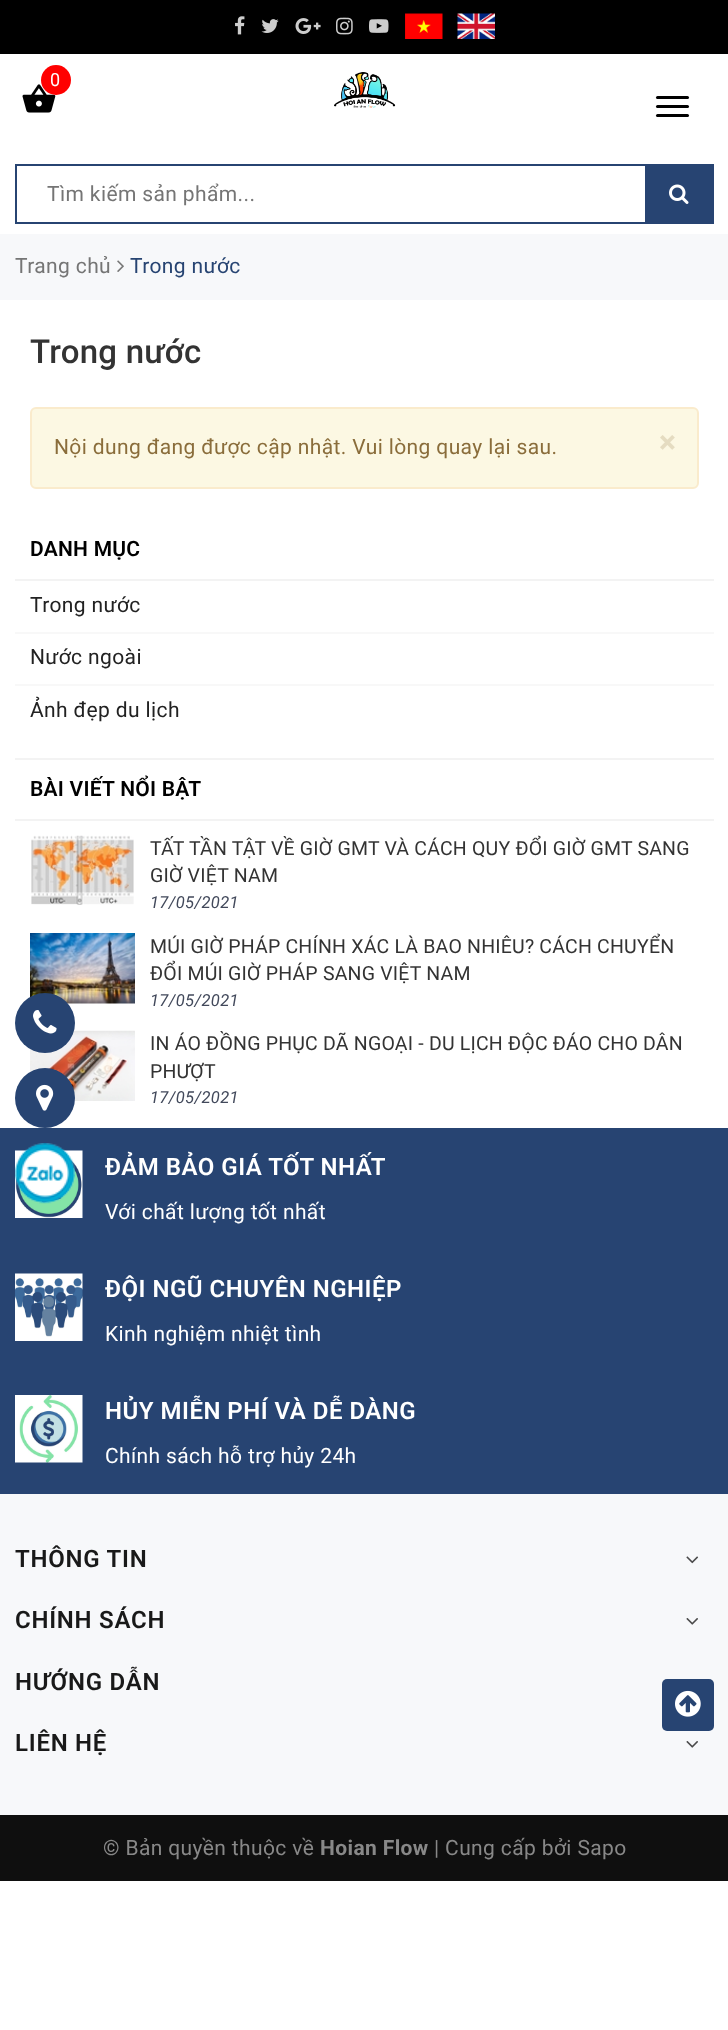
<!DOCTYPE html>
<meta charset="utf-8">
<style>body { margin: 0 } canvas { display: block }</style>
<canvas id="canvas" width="728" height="2030"></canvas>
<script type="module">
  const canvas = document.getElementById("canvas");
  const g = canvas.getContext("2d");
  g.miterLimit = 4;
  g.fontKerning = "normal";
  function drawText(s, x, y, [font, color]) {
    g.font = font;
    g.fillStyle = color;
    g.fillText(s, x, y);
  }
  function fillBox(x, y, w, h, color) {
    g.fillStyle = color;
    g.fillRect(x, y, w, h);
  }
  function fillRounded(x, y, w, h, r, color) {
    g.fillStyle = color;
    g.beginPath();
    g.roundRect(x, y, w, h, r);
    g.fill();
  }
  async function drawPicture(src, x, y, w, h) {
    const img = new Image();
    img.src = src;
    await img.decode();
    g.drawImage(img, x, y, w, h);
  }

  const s1 = ["18px Roboto", "#FFFFFF"];
  const s2 = ["21px Roboto", "#757575"];
  const s3 = ["21px Roboto", "#274472"];
  const s4 = ["500 33px Roboto", "#333333"];
  const s5 = ["21px Roboto", "#8A6D3B"];
  const s6 = ["bold 32px Roboto", "#E5DCC1"];
  const s7 = ["600 21px Roboto", "#000000"];
  const s8 = ["21px Roboto", "#222222"];
  const s9 = ["19.5px Roboto", "#333333"];
  const s10 = ["italic 16.5px Roboto", "#42495B"];
  const s11 = ["600 24px Roboto", "#FFFFFF"];
  const s12 = ["21px Roboto", "#FFFFFF"];
  const s13 = ["600 24px Roboto", "#191919"];
  const s14 = ["21px Roboto", "#888888"];
  const s15 = ["bold 21px Roboto", "#888888"];

  fillBox(0, 0, 728, 2030, "#FFFFFF");
  fillBox(0, 0, 728, 54, "#000000");
  await drawPicture("pic1.png", 235, 16, 10, 19);
  await drawPicture("pic2.png", 261, 19, 18, 14);
  await drawPicture("pic3.png", 295, 18, 26, 16);
  await drawPicture("pic4.png", 336, 17, 17, 18);
  await drawPicture("pic5.png", 369, 19, 20, 14);
  await drawPicture("pic6.png", 405, 13, 38, 26);
  await drawPicture("pic7.png", 457, 13, 38, 26);
  await drawPicture("pic8.png", 22, 84, 34, 29);
  g.fillStyle = "#FF0000";
  g.beginPath();
  g.arc(56, 80, 15, 0, Math.PI * 2);
  g.fill();
  g.letterSpacing = "0.38px";
  drawText("0", 50, 86, s1);
  await drawPicture("pic9.png", 334, 72, 62, 36);
  fillRounded(656, 96, 33, 3, 1.5, "#000000");
  fillRounded(656, 105, 33, 3, 1.5, "#000000");
  fillRounded(656, 114, 33, 3, 1.5, "#000000");
  g.strokeStyle = "#274472";
  g.lineWidth = 2;
  g.strokeRect(16, 165, 697, 58);
  drawText("Tìm kiếm sản phẩm...", 47, 201, s2);
  fillBox(645, 166, 67, 56, "#274472");
  await drawPicture("pic10.png", 669, 184, 20, 20);
  fillBox(0, 234, 728, 66, "#F7F8FA");
  drawText("Trang chủ", 15, 273, s2);
  await drawPicture("pic11.png", 117, 260, 7, 12);
  drawText("Trong nước", 130, 273, s3);
  g.letterSpacing = "0.25px";
  drawText("Trong nước", 30, 363, s4);
  g.fillStyle = "#FCF8E3";
  g.beginPath();
  g.roundRect(31, 408, 667, 80, 5);
  g.fill();
  g.strokeStyle = "#FAEBCC";
  g.stroke();
  g.letterSpacing = "0.38px";
  drawText("Nội dung đang được cập nhật. Vui lòng quay lại sau.", 54, 454, s5);
  drawText("×", 659, 453, s6);
  fillBox(15, 579, 699, 2, "#F3F3F3");
  g.letterSpacing = "0.25px";
  drawText("DANH MỤC", 30, 556, s7);
  fillBox(15, 632, 699, 2, "#F8F8F8");
  g.letterSpacing = "0.38px";
  drawText("Trong nước", 30, 612, s8);
  fillBox(15, 684, 699, 2, "#F8F8F8");
  drawText("Nước ngoài", 30, 664, s8);
  drawText("Ảnh đẹp du lịch", 30, 717, s8);
  fillBox(15, 758, 699, 2, "#F3F3F3");
  fillBox(15, 819, 699, 2, "#F3F3F3");
  g.letterSpacing = "0.25px";
  drawText("BÀI VIẾT NỔI BẬT", 30, 796, s7);
  await drawPicture("pic12.png", 31, 835, 103, 70);
  g.letterSpacing = "0.2px";
  drawText("TẤT TẦN TẬT VỀ GIỜ GMT VÀ CÁCH QUY ĐỔI GIỜ GMT SANG", 150, 855, s9);
  drawText("GIỜ VIỆT NAM", 150, 882, s9);
  g.letterSpacing = "0.38px";
  drawText("17/05/2021", 150, 908, s10);
  await drawPicture("pic13.png", 30, 933, 105, 71);
  g.letterSpacing = "0.2px";
  drawText("MÚI GIỜ PHÁP CHÍNH XÁC LÀ BAO NHIÊU? CÁCH CHUYỂN", 150, 953, s9);
  drawText("ĐỔI MÚI GIỜ PHÁP SANG VIỆT NAM", 150, 980, s9);
  g.letterSpacing = "0.38px";
  drawText("17/05/2021", 150, 1006, s10);
  await drawPicture("pic14.png", 30, 1030, 105, 71);
  g.letterSpacing = "0.2px";
  drawText("IN ÁO ĐỒNG PHỤC DÃ NGOẠI - DU LỊCH ĐỘC ĐÁO CHO DÂN", 150, 1050, s9);
  drawText("PHƯỢT", 150, 1078, s9);
  g.letterSpacing = "0.38px";
  drawText("17/05/2021", 150, 1103, s10);
  g.fillStyle = "#274472";
  g.beginPath();
  g.arc(45, 1023, 30, 0, Math.PI * 2);
  g.fill();
  await drawPicture("pic15.png", 33, 1010, 24, 24);
  g.beginPath();
  g.arc(45, 1098, 30, 0, Math.PI * 2);
  g.fill();
  await drawPicture("pic16.png", 36, 1084, 18, 27);
  fillBox(0, 1128, 728, 366, "#274472");
  await drawPicture("pic18.png", 15, 1150, 68, 68);
  await drawPicture("pic17.png", 15, 1143, 60, 61);
  g.letterSpacing = "0.5px";
  drawText("ĐẢM BẢO GIÁ TỐT NHẤT", 105, 1175, s11);
  g.letterSpacing = "0.38px";
  drawText("Với chất lượng tốt nhất", 105, 1219, s12);
  await drawPicture("pic19.png", 15, 1273, 68, 68);
  g.letterSpacing = "0.5px";
  drawText("ĐỘI NGŨ CHUYÊN NGHIỆP", 105, 1297, s11);
  g.letterSpacing = "0.38px";
  drawText("Kinh nghiệm nhiệt tình", 105, 1341, s12);
  await drawPicture("pic20.png", 15, 1395, 68, 68);
  g.letterSpacing = "0.5px";
  drawText("HỦY MIỄN PHÍ VÀ DỄ DÀNG", 105, 1419, s11);
  g.letterSpacing = "0.38px";
  drawText("Chính sách hỗ trợ hủy 24h", 105, 1463, s12);
  fillBox(0, 1494, 728, 321, "#F7F8FA");
  g.letterSpacing = "0.75px";
  drawText("THÔNG TIN", 15, 1567, s13);
  await drawPicture("pic21.png", 686, 1556, 13, 8);
  drawText("CHÍNH SÁCH", 15, 1628, s13);
  await drawPicture("pic22.png", 686, 1618, 12, 7);
  drawText("HƯỚNG DẪN", 15, 1690, s13);
  drawText("LIÊN HỆ", 15, 1751, s13);
  await drawPicture("pic22.png", 686, 1741, 12, 7);
  fillRounded(662, 1679, 52, 52, 5, "#274472");
  await drawPicture("pic23.png", 675, 1690, 26, 27);
  fillBox(0, 1815, 728, 66, "#0F0F0F");
  g.letterSpacing = "0.38px";
  drawText("© Bản quyền thuộc về", 103, 1855, s14);
  drawText("Hoian Flow", 320, 1855, s15);
  drawText("| Cung cấp bởi Sapo", 434, 1855, s14);
</script>
